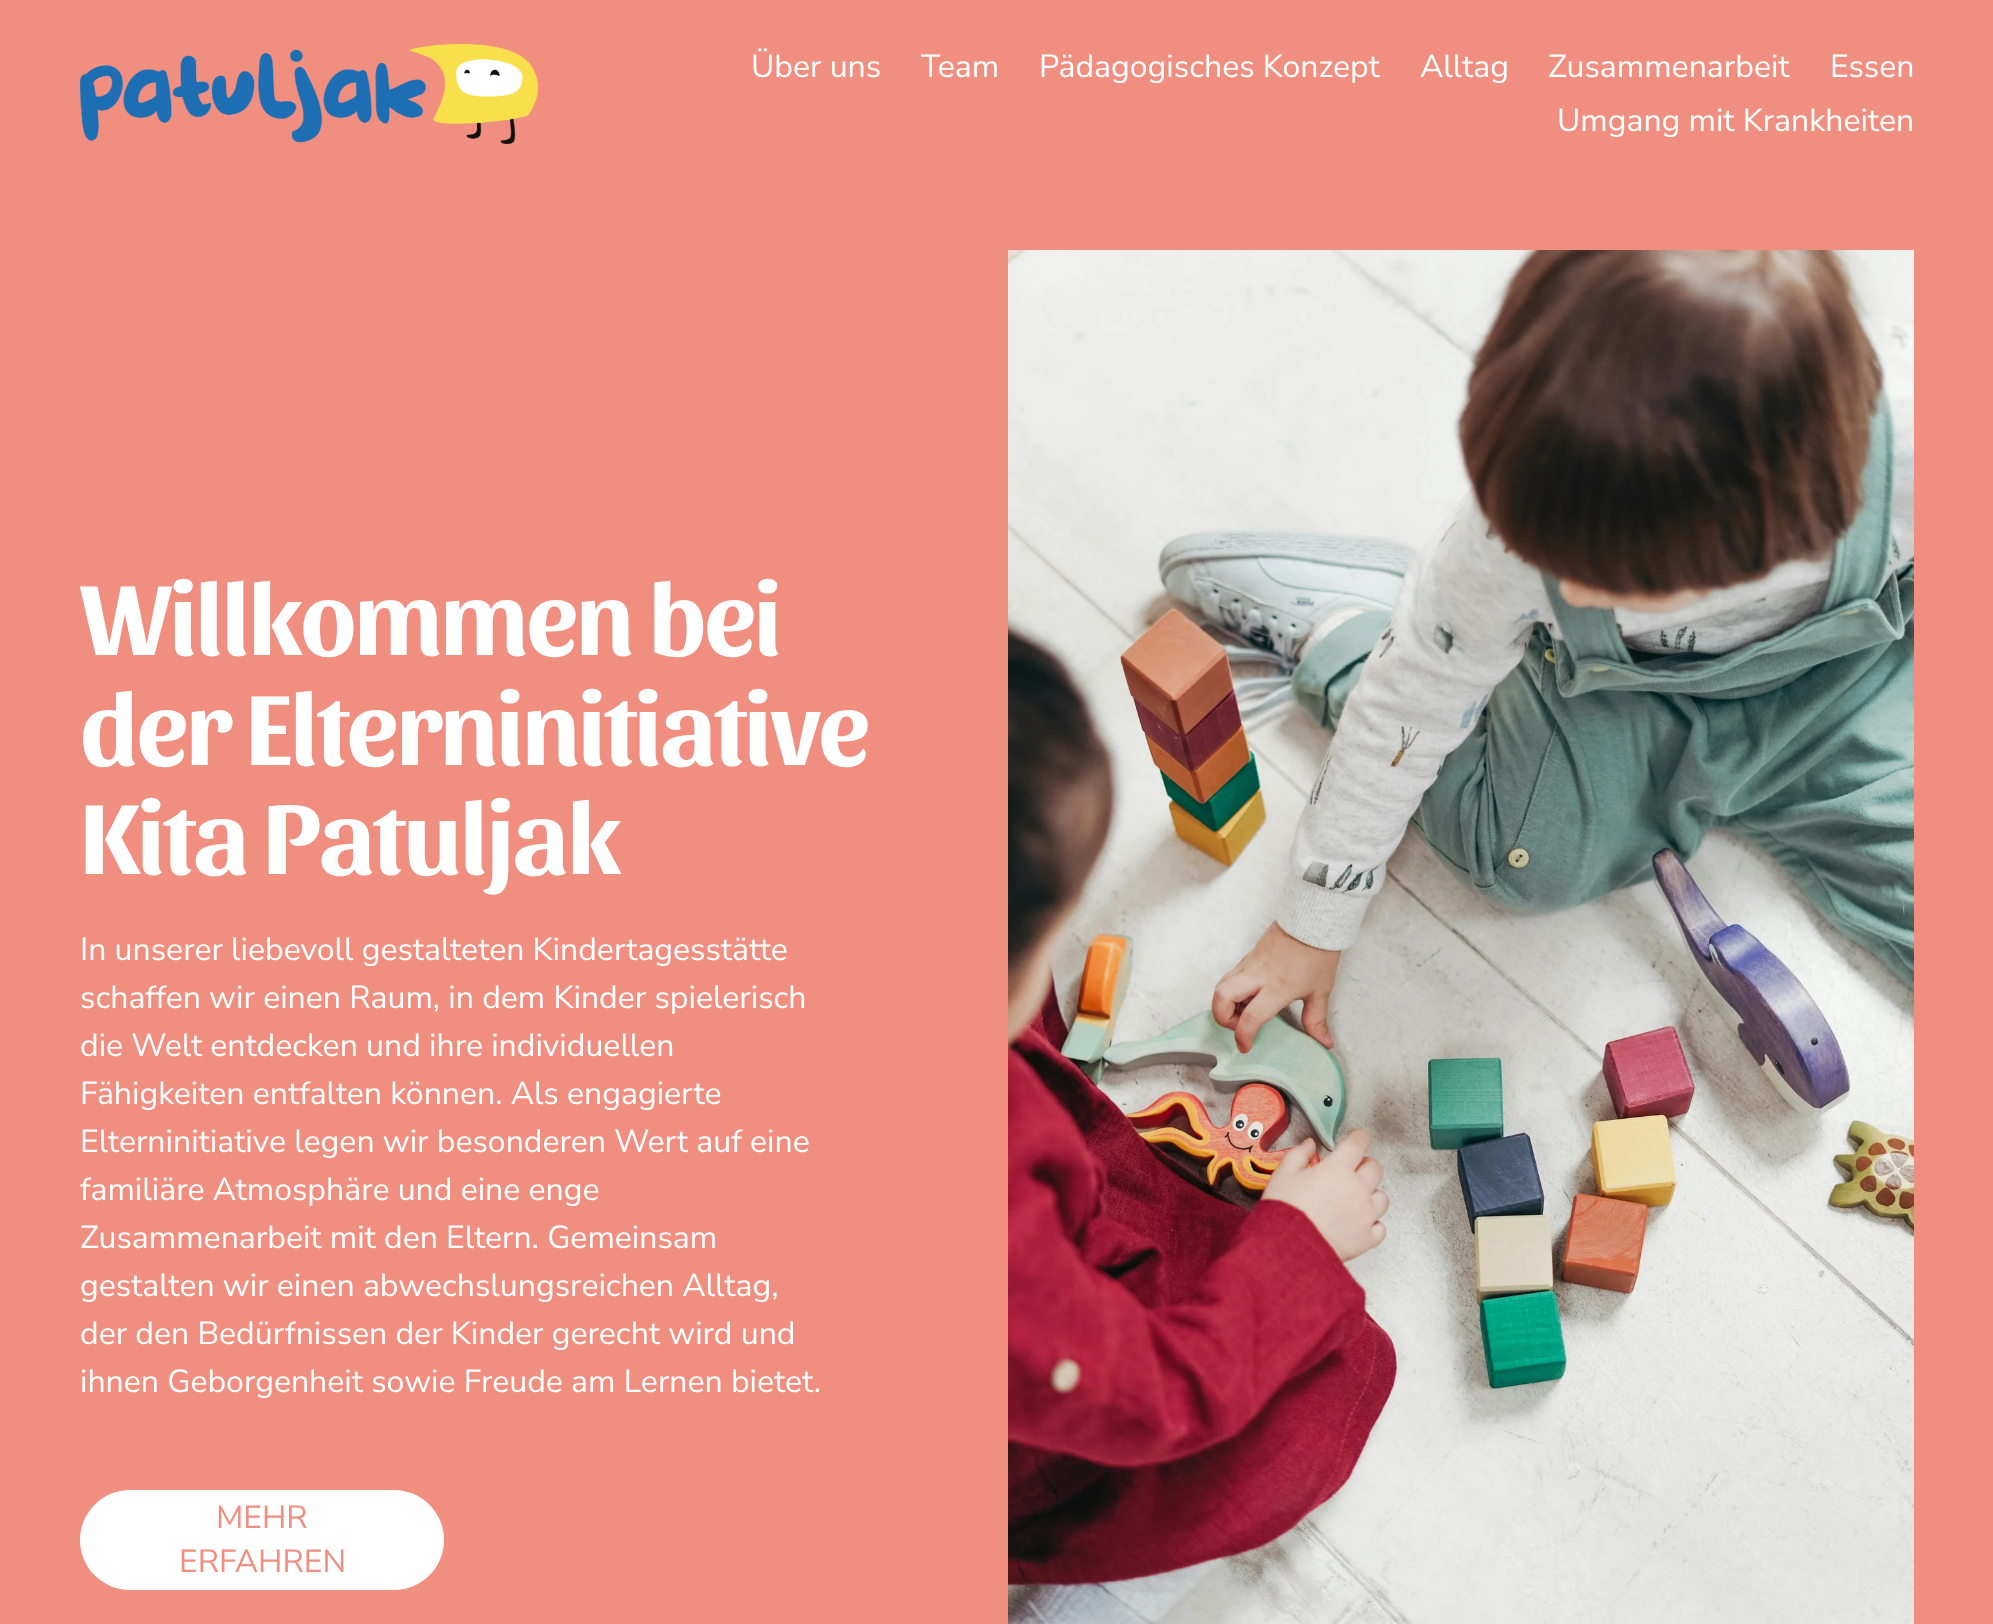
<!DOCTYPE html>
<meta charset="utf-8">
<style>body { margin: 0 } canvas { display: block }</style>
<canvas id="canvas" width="1993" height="1624"></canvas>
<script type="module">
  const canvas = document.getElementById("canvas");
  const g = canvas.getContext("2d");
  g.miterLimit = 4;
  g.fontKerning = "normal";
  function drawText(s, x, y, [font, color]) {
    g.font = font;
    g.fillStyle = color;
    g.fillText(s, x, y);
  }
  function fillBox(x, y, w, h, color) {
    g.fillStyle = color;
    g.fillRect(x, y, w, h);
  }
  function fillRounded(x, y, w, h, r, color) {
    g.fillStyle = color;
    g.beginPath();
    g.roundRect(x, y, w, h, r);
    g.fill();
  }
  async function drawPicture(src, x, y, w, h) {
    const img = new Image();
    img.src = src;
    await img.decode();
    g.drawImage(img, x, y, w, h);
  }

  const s1 = ["32px Nunito Sans", "#FFFFFF"];
  const s2 = ["bold 103.75px Sansita", "#FFFFFF"];
  const s3 = ["32px Nunito Sans", "#F08E80"];

  fillBox(0, 0, 1993, 1624, "#F08E80");
  await drawPicture("pic1.png", 80, 44, 459, 100);
  drawText("Über uns", 751, 77, s1);
  drawText("Team", 921, 77, s1);
  drawText("Pädagogisches Konzept", 1039, 77, s1);
  drawText("Alltag", 1420, 77, s1);
  drawText("Zusammenarbeit", 1548, 77, s1);
  drawText("Essen", 1830, 77, s1);
  drawText("Umgang mit Krankheiten", 1557, 131, s1);
  g.letterSpacing = "-2.1px";
  drawText("Willkommen bei", 80, 655, s2);
  drawText("der Elterninitiative", 80, 765, s2);
  drawText("Kita Patuljak", 80, 874, s2);
  await drawPicture("pic2.png", 1008, 250, 906, 1374);
  g.letterSpacing = "0px";
  drawText("In unserer liebevoll gestalteten Kindertagesstätte", 80, 960, s1);
  drawText("schaffen wir einen Raum, in dem Kinder spielerisch", 80, 1008, s1);
  drawText("die Welt entdecken und ihre individuellen", 80, 1056, s1);
  drawText("Fähigkeiten entfalten können. Als engagierte", 80, 1104, s1);
  drawText("Elterninitiative legen wir besonderen Wert auf eine", 80, 1152, s1);
  drawText("familiäre Atmosphäre und eine enge", 80, 1200, s1);
  drawText("Zusammenarbeit mit den Eltern. Gemeinsam", 80, 1248, s1);
  drawText("gestalten wir einen abwechslungsreichen Alltag,", 80, 1296, s1);
  drawText("der den Bedürfnissen der Kinder gerecht wird und", 80, 1344, s1);
  drawText("ihnen Geborgenheit sowie Freude am Lernen bietet.", 80, 1392, s1);
  fillRounded(80, 1490, 364, 100, 50, "#FFFFFF");
  drawText("MEHR", 216, 1528, s3);
  drawText("ERFAHREN", 179, 1572, s3);
</script>
